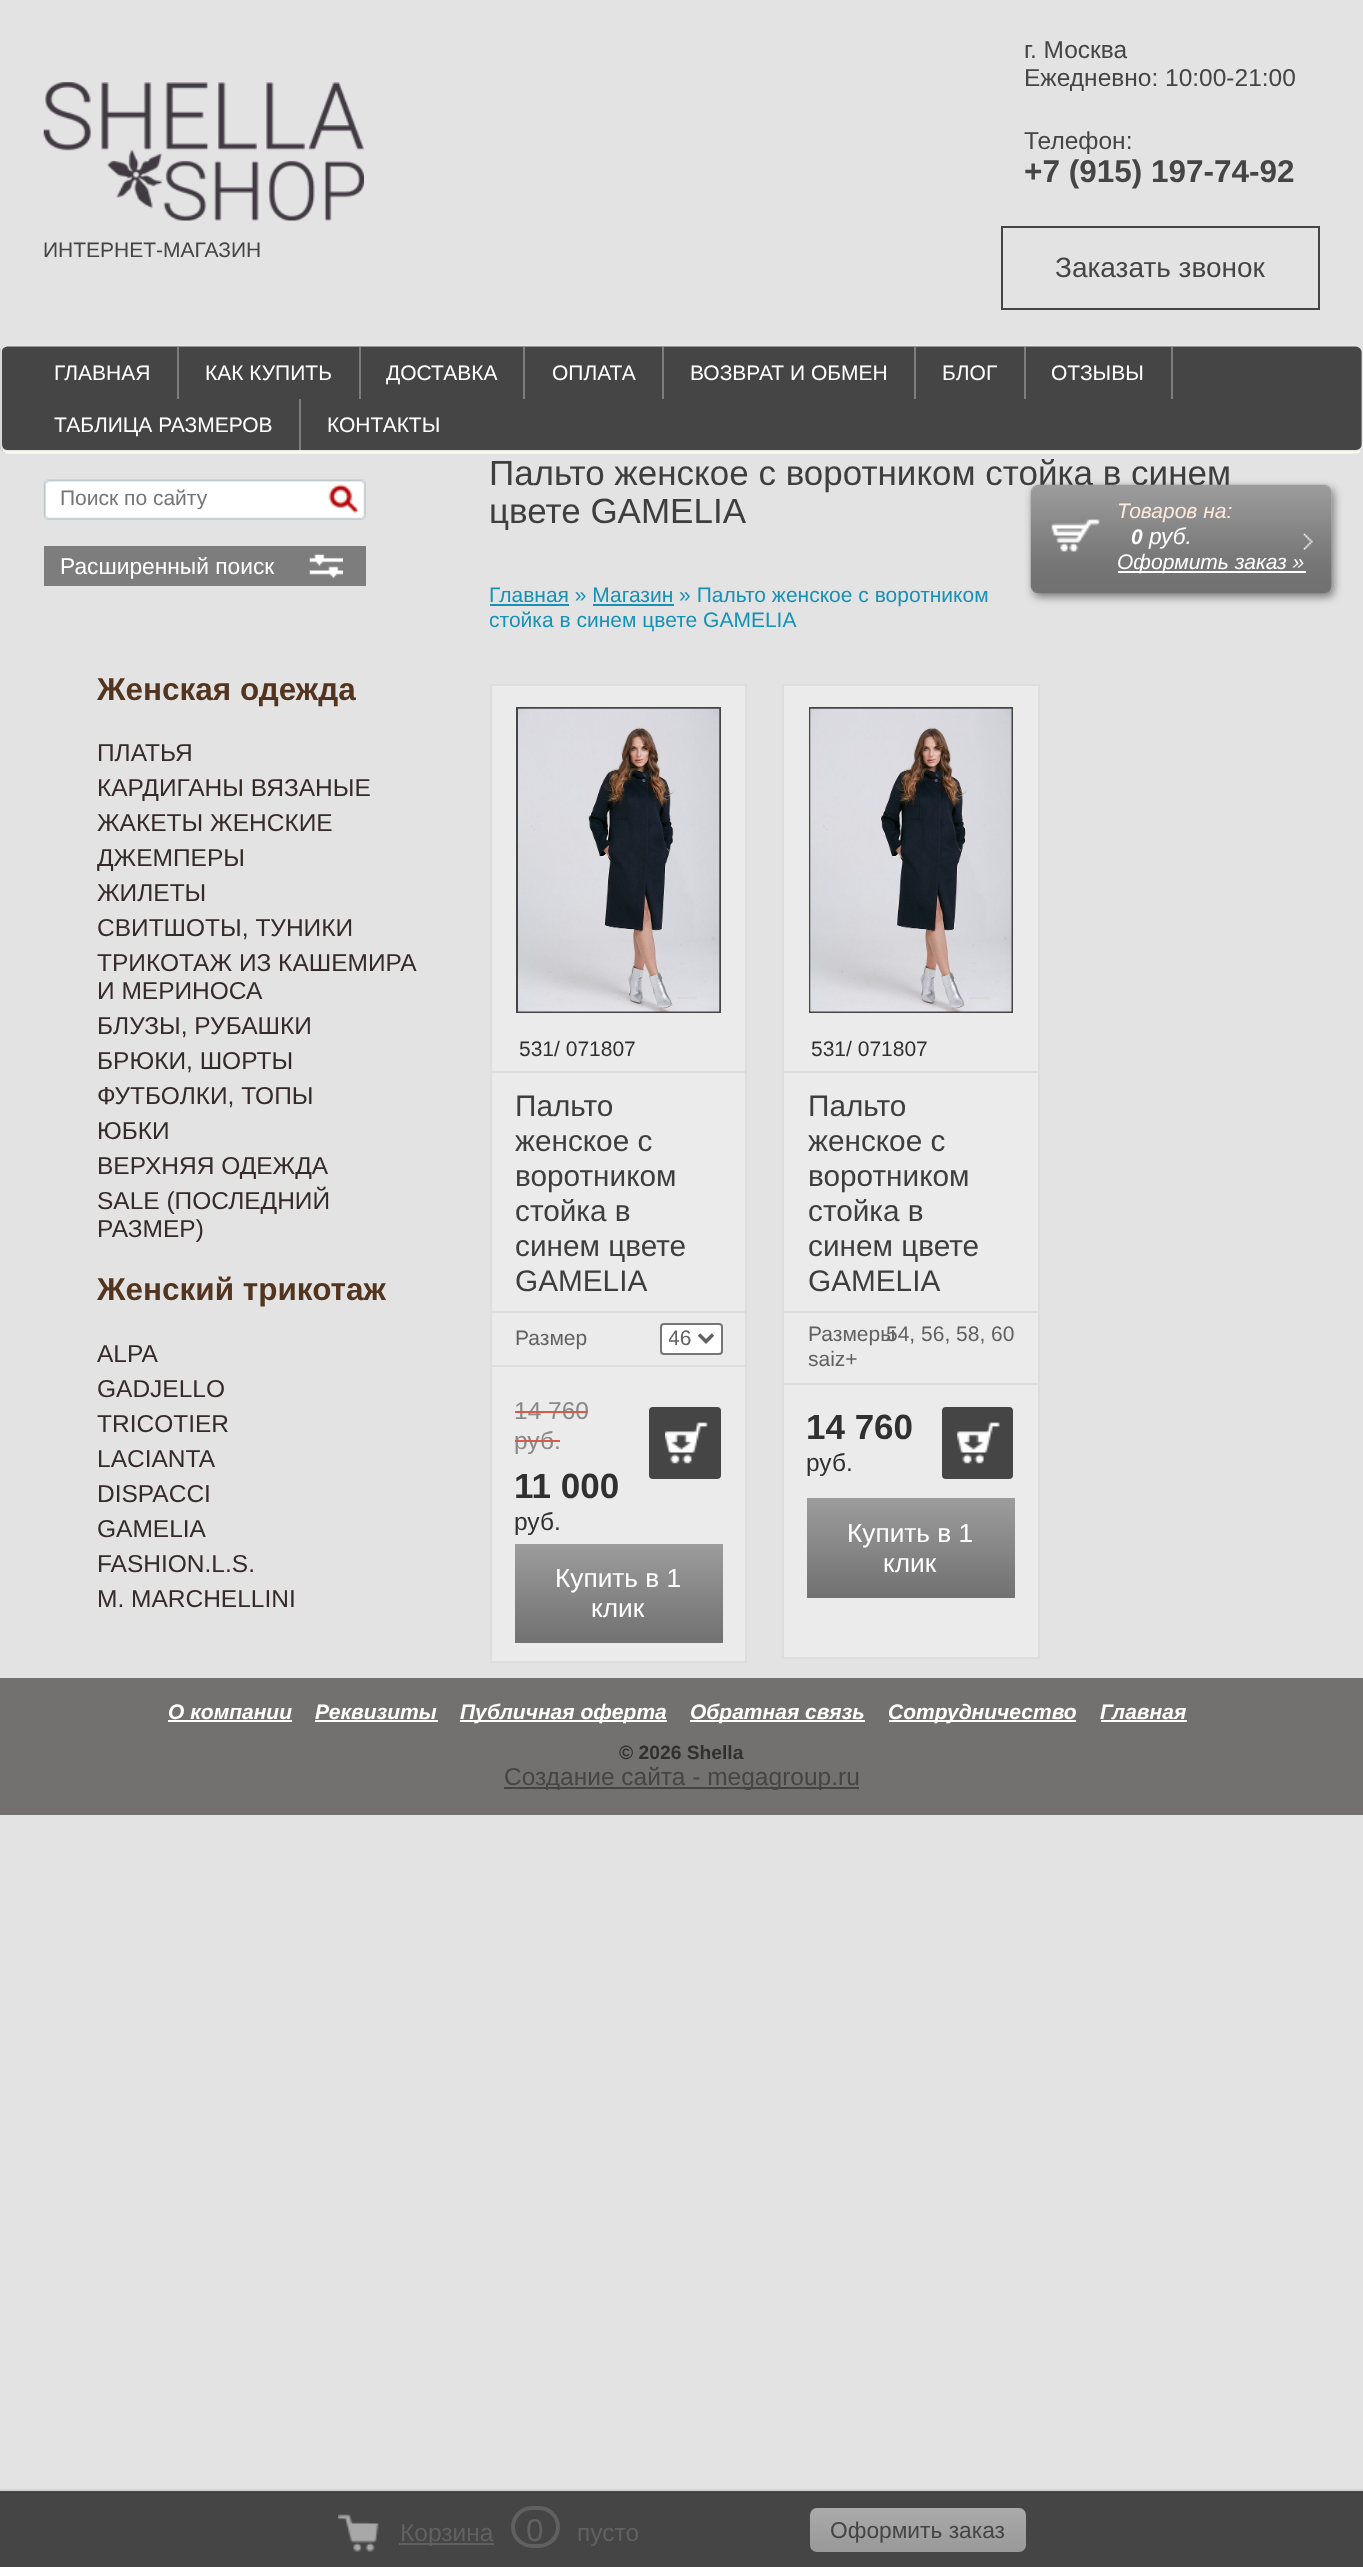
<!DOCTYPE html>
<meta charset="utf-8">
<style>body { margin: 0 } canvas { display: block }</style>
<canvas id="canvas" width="1363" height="2567"></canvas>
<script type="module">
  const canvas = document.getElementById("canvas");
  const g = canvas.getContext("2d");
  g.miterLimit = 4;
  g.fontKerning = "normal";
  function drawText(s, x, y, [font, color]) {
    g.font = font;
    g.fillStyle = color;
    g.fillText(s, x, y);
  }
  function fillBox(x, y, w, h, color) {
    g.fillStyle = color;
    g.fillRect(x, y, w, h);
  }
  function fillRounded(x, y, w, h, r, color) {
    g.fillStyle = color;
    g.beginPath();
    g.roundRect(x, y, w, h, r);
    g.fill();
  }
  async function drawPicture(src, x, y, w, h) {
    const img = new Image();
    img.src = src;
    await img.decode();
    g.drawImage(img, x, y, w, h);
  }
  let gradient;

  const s1 = ["21px Liberation Sans", "#454545"];
  const s2 = ["24.5px Liberation Sans", "#454545"];
  const s3 = ["bold 31.5px Liberation Sans", "#454545"];
  const s4 = ["28px Liberation Sans", "#454545"];
  const s5 = ["21px Liberation Sans", "#FFFFFF"];
  const s6 = ["21px Liberation Sans", "#757575"];
  const s7 = ["22.75px Liberation Sans", "#FFFFFF"];
  const s8 = ["bold 31.5px Liberation Sans", "#53341F"];
  const s9 = ["24.5px Liberation Sans", "#342A29"];
  const s10 = ["35px Liberation Sans", "#3E3E3E"];
  const s11 = ["italic 21px Liberation Sans", "#FCE9DC"];
  const s12 = ["italic bold 21px Liberation Sans", "#FFFFFF"];
  const s13 = ["italic 22.75px Liberation Sans", "#FFFFFF"];
  const s14 = ["italic 21px Liberation Sans", "#FFFFFF"];
  const s15 = ["21px Liberation Sans", "#1791B4"];
  const s16 = ["21px Liberation Sans", "#303030"];
  const s17 = ["29.75px Liberation Sans", "#3E3E3E"];
  const s18 = ["21px Liberation Sans", "#616161"];
  const s19 = ["24.5px Liberation Sans", "#898989"];
  const s20 = ["bold 35px Liberation Sans", "#303030"];
  const s21 = ["24.5px Liberation Sans", "#303030"];
  const s22 = ["26.25px Liberation Sans", "#FFFFFF"];
  const s23 = ["24.5px Liberation Sans", "#616161"];
  const s24 = ["31.5px Liberation Sans", "#616161"];
  const s25 = ["22.75px Liberation Sans", "#454545"];
  const s26 = ["bold 19.25px Liberation Sans", "#303030"];

  fillBox(0, 0, 1363, 2567, "#E3E3E3");
  await drawPicture("pic1.png", 43, 82, 321, 139);
  drawText("ИНТЕРНЕТ-МАГАЗИН", 43, 257, s1);
  drawText("г. Москва", 1024, 58, s2);
  drawText("Ежедневно: 10:00-21:00", 1024, 86, s2);
  drawText("Телефон:", 1024, 149, s2);
  drawText("+7 (915) 197-74-92", 1024, 182, s3);
  g.strokeStyle = "#454545";
  g.lineWidth = 2;
  g.strokeRect(1002, 227, 317, 82);
  drawText("Заказать звонок", 1055, 277, s4);
  fillRounded(0, 345, 1363, 108, 7, "#454545");
  g.fillStyle = "#E7E7E7";
  g.beginPath();
  g.moveTo(2, 444);
  g.lineTo(2, 447);
  g.bezierCurveTo(2, 450, 4, 452, 7, 452);
  g.lineTo(1357, 452);
  g.bezierCurveTo(1360, 452, 1362, 450, 1362, 447);
  g.lineTo(1362, 444);
  g.bezierCurveTo(1362, 447, 1359, 450, 1356, 450);
  g.lineTo(7, 450);
  g.bezierCurveTo(4, 450, 2, 447, 2, 444);
  g.closePath();
  g.fill();
  g.beginPath();
  g.moveTo(1360.5, 450.5);
  g.bezierCurveTo(1359.5, 451.5, 1358, 452.5, 1356, 452.5);
  g.lineTo(7, 452.5);
  g.bezierCurveTo(5.5, 452.5, 4, 451.5, 2.5, 450.5);
  g.strokeStyle = "#FFFDF0";
  g.lineWidth = 1.8;
  g.stroke();
  g.beginPath();
  g.moveTo(2.5, 450.5);
  g.bezierCurveTo(1.5, 449.5, 1, 448, 1, 446);
  g.lineTo(1, 352);
  g.bezierCurveTo(1, 350, 1.5, 348.5, 2.5, 347.5);
  g.bezierCurveTo(4, 346.5, 5.5, 345.5, 7, 345.5);
  g.lineTo(1356, 345.5);
  g.bezierCurveTo(1358, 345.5, 1359.5, 346.5, 1360.5, 347.5);
  g.bezierCurveTo(1361.5, 348.5, 1362.5, 350, 1362.5, 352);
  g.lineTo(1362.5, 446);
  g.bezierCurveTo(1362.5, 448, 1361.5, 449.5, 1360.5, 450.5);
  g.strokeStyle = "#E7E7E7";
  g.stroke();
  fillBox(177, 347, 2, 52, "#7D7D7D");
  drawText("ГЛАВНАЯ", 54, 380, s5);
  fillBox(359, 347, 2, 52, "#7D7D7D");
  drawText("КАК КУПИТЬ", 205, 380, s5);
  fillBox(523, 347, 2, 52, "#7D7D7D");
  drawText("ДОСТАВКА", 386, 380, s5);
  fillBox(662, 347, 2, 52, "#7D7D7D");
  drawText("ОПЛАТА", 552, 380, s5);
  fillBox(914, 347, 2, 52, "#7D7D7D");
  drawText("ВОЗВРАТ И ОБМЕН", 690, 380, s5);
  fillBox(1024, 347, 2, 52, "#7D7D7D");
  drawText("БЛОГ", 942, 380, s5);
  fillBox(1171, 347, 2, 52, "#7D7D7D");
  drawText("ОТЗЫВЫ", 1051, 380, s5);
  fillBox(299, 399, 2, 53, "rgba(255, 255, 255, 0.3)");
  drawText("ТАБЛИЦА РАЗМЕРОВ", 54, 432, s5);
  drawText("КОНТАКТЫ", 327, 432, s5);
  await drawPicture("pic2.png", 43, 479, 323, 41);
  g.save();
  g.beginPath();
  g.rect(61, 487, 256, 22);
  g.clip();
  drawText("Поиск по сайту", 60, 505, s6);
  g.restore();
  fillBox(44, 546, 322, 40, "#7D7D7D");
  drawText("Расширенный поиск", 60, 574, s7);
  await drawPicture("pic3.png", 309, 554, 34, 24);
  drawText("Женская одежда", 97, 700, s8);
  drawText("ПЛАТЬЯ", 97, 761, s9);
  drawText("КАРДИГАНЫ ВЯЗАНЫЕ", 97, 796, s9);
  drawText("ЖАКЕТЫ ЖЕНСКИЕ", 97, 831, s9);
  drawText("ДЖЕМПЕРЫ", 97, 866, s9);
  drawText("ЖИЛЕТЫ", 97, 901, s9);
  drawText("СВИТШОТЫ, ТУНИКИ", 97, 936, s9);
  drawText("ТРИКОТАЖ ИЗ КАШЕМИРА", 97, 971, s9);
  drawText("И МЕРИНОСА", 97, 999, s9);
  drawText("БЛУЗЫ, РУБАШКИ", 97, 1034, s9);
  drawText("БРЮКИ, ШОРТЫ", 97, 1069, s9);
  drawText("ФУТБОЛКИ, ТОПЫ", 97, 1104, s9);
  drawText("ЮБКИ", 97, 1139, s9);
  drawText("ВЕРХНЯЯ ОДЕЖДА", 97, 1174, s9);
  drawText("SALE (ПОСЛЕДНИЙ", 97, 1209, s9);
  drawText("РАЗМЕР)", 97, 1237, s9);
  drawText("Женский трикотаж", 97, 1300, s8);
  drawText("ALPA", 97, 1362, s9);
  drawText("GADJELLO", 97, 1397, s9);
  drawText("TRICOTIER", 97, 1432, s9);
  drawText("LACIANTA", 97, 1467, s9);
  drawText("DISPACCI", 97, 1502, s9);
  drawText("GAMELIA", 97, 1537, s9);
  drawText("FASHION.L.S.", 97, 1572, s9);
  drawText("M. MARCHELLINI", 97, 1607, s9);
  drawText("Пальто женское с воротником стойка в синем", 489, 485, s10);
  drawText("цвете GAMELIA", 489, 523, s10);
  g.save();
  g.beginPath();
  g.moveTo(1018, 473);
  g.lineTo(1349, 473);
  g.lineTo(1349, 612);
  g.lineTo(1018, 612);
  g.closePath();
  g.moveTo(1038, 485);
  g.lineTo(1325, 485);
  g.bezierCurveTo(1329, 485, 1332, 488, 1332, 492);
  g.lineTo(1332, 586);
  g.bezierCurveTo(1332, 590, 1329, 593, 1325, 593);
  g.lineTo(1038, 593);
  g.bezierCurveTo(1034, 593, 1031, 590, 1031, 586);
  g.lineTo(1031, 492);
  g.bezierCurveTo(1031, 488, 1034, 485, 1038, 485);
  g.closePath();
  g.clip("evenodd");
  g.fillStyle = "rgba(0, 0, 0, 0.45)";
  g.filter = "blur(4.5px)";
  g.beginPath();
  g.roundRect(1033, 488, 301, 109, 7);
  g.fill();
  g.filter = "none";
  g.restore();
  await drawPicture("pic4.png", 1030, 484, 302, 110);
  drawText("Товаров на:", 1117, 518, s11);
  await drawPicture("pic5.png", 1303, 533, 10, 17);
  drawText("0", 1131, 544, s12);
  drawText("руб.", 1149, 544, s13);
  fillBox(1118, 571, 188, 2, "#FFFFFF");
  drawText("Оформить заказ »", 1117, 569, s14);
  fillBox(490, 604, 79, 2, "#1791B4");
  drawText("Главная » Магазин » Пальто женское с воротником", 489, 602, s15);
  fillBox(593, 604, 81, 2, "#1791B4");
  drawText("стойка в синем цвете GAMELIA", 489, 627, s15);
  g.fillStyle = "#EBEBEB";
  g.beginPath();
  g.rect(491, 685, 255, 977);
  g.fill();
  g.strokeStyle = "#DDDDDD";
  g.lineWidth = 2;
  g.stroke();
  g.strokeStyle = "#454545";
  g.strokeRect(517, 708, 203, 304);
  await drawPicture("pic6.png", 518, 708, 202, 304);
  fillBox(492, 1311, 254, 2, "#DDDDDD");
  fillBox(490, 1071, 257, 2, "#DDDDDD");
  drawText("531/ 071807", 519, 1056, s16);
  drawText("Пальто", 515, 1116, s17);
  drawText("женское с", 515, 1151, s17);
  drawText("воротником", 515, 1186, s17);
  drawText("стойка в", 515, 1221, s17);
  drawText("синем цвете", 515, 1256, s17);
  drawText("GAMELIA", 515, 1291, s17);
  fillBox(492, 1365, 254, 2, "#DDDDDD");
  drawText("Размер", 515, 1345, s18);
  g.fillStyle = "#FFFFFF";
  g.beginPath();
  g.roundRect(661, 1324, 61, 30, 3);
  g.fill();
  g.strokeStyle = "#767676";
  g.stroke();
  g.beginPath();
  g.moveTo(699, 1334.5);
  g.lineTo(706, 1341.5);
  g.lineTo(713, 1334.5);
  g.strokeStyle = "#616161";
  g.lineWidth = 3.5;
  g.stroke();
  g.save();
  g.beginPath();
  g.rect(669, 1325, 24, 28);
  g.clip();
  drawText("46", 668, 1345, s18);
  g.restore();
  drawText("14 760", 514, 1419, s19);
  fillBox(515, 1411, 73, 2, "#D85A4D");
  drawText("руб.", 514, 1449, s19);
  fillBox(515, 1440, 45, 2, "#D85A4D");
  drawText("11 000", 514, 1498, s20);
  drawText("руб.", 514, 1530, s21);
  fillRounded(649, 1407, 72, 72, 4, "#454545");
  await drawPicture("pic7.png", 665, 1422, 43, 42);
  gradient = g.createLinearGradient(619, 1544, 619, 1643);
  gradient.addColorStop(0, "#9C9C9C");
  gradient.addColorStop(1, "#717171");
  g.fillStyle = gradient;
  g.fillRect(515, 1544, 208, 99);
  drawText("Купить в 1", 555, 1587, s22);
  drawText("клик", 591, 1617, s22);
  g.fillStyle = "#EBEBEB";
  g.beginPath();
  g.rect(783, 685, 256, 973);
  g.fill();
  g.strokeStyle = "#DDDDDD";
  g.lineWidth = 2;
  g.stroke();
  g.strokeStyle = "#454545";
  g.strokeRect(810, 708, 202, 304);
  await drawPicture("pic8.png", 810, 708, 202, 304);
  fillBox(784, 1311, 254, 2, "#DDDDDD");
  fillBox(782, 1071, 258, 2, "#DDDDDD");
  drawText("531/ 071807", 811, 1056, s16);
  drawText("Пальто", 808, 1116, s17);
  drawText("женское с", 808, 1151, s17);
  drawText("воротником", 808, 1186, s17);
  drawText("стойка в", 808, 1221, s17);
  drawText("синем цвете", 808, 1256, s17);
  drawText("GAMELIA", 808, 1291, s17);
  fillBox(784, 1383, 254, 2, "#DDDDDD");
  drawText("Размеры", 808, 1341, s18);
  drawText("saiz+", 808, 1366, s18);
  drawText("54, 56, 58, 60", 886, 1341, s18);
  drawText("14 760", 806, 1439, s20);
  drawText("руб.", 806, 1471, s21);
  fillRounded(942, 1407, 71, 72, 4, "#454545");
  await drawPicture("pic9.png", 957, 1422, 43, 42);
  gradient = g.createLinearGradient(911, 1498, 911, 1598);
  gradient.addColorStop(0, "#9C9C9C");
  gradient.addColorStop(1, "#717171");
  g.fillStyle = gradient;
  g.fillRect(807, 1498, 208, 100);
  drawText("Купить в 1", 847, 1542, s22);
  drawText("клик", 883, 1572, s22);
  fillBox(0, 2491, 1363, 76, "#454545");
  fillBox(0, 2489, 1363, 2, "#D4D4D4");
  await drawPicture("pic10.png", 338, 2514, 41, 38);
  fillBox(399, 2543, 95, 2, "#606060");
  drawText("Корзина", 400, 2541, s23);
  g.beginPath();
  g.roundRect(513, 2508, 45, 38, 19);
  g.strokeStyle = "#606060";
  g.lineWidth = 4;
  g.stroke();
  drawText("0", 526, 2541, s24);
  drawText("пусто", 577, 2541, s23);
  gradient = g.createLinearGradient(918, 2508, 918, 2552);
  gradient.addColorStop(0, "#AAAAAA");
  gradient.addColorStop(1, "#999999");
  g.fillStyle = gradient;
  g.beginPath();
  g.roundRect(810, 2508, 216, 44, 7);
  g.fill();
  drawText("Оформить заказ", 830, 2538, s25);
  fillBox(0, 1678, 1363, 137, "#72716F");
  drawText("О компании", 168, 1719, s12);
  fillBox(168, 1720, 124, 2, "#FFFFFF");
  drawText("Реквизиты", 315, 1719, s12);
  fillBox(315, 1720, 123, 2, "#FFFFFF");
  fillBox(460, 1720, 207, 2, "#FFFFFF");
  drawText("Публичная оферта", 460, 1719, s12);
  fillBox(690, 1720, 175, 2, "#FFFFFF");
  drawText("Обратная связь", 690, 1719, s12);
  fillBox(889, 1720, 187, 2, "#FFFFFF");
  drawText("Сотрудничество", 888, 1719, s12);
  drawText("Главная", 1100, 1719, s12);
  fillBox(1101, 1720, 86, 2, "#FFFFFF");
  drawText("© 2026 Shella", 619, 1759, s26);
  fillBox(504, 1787, 355, 2, "#454545");
  drawText("Создание сайта - megagroup.ru", 504, 1785, s2);
</script>
